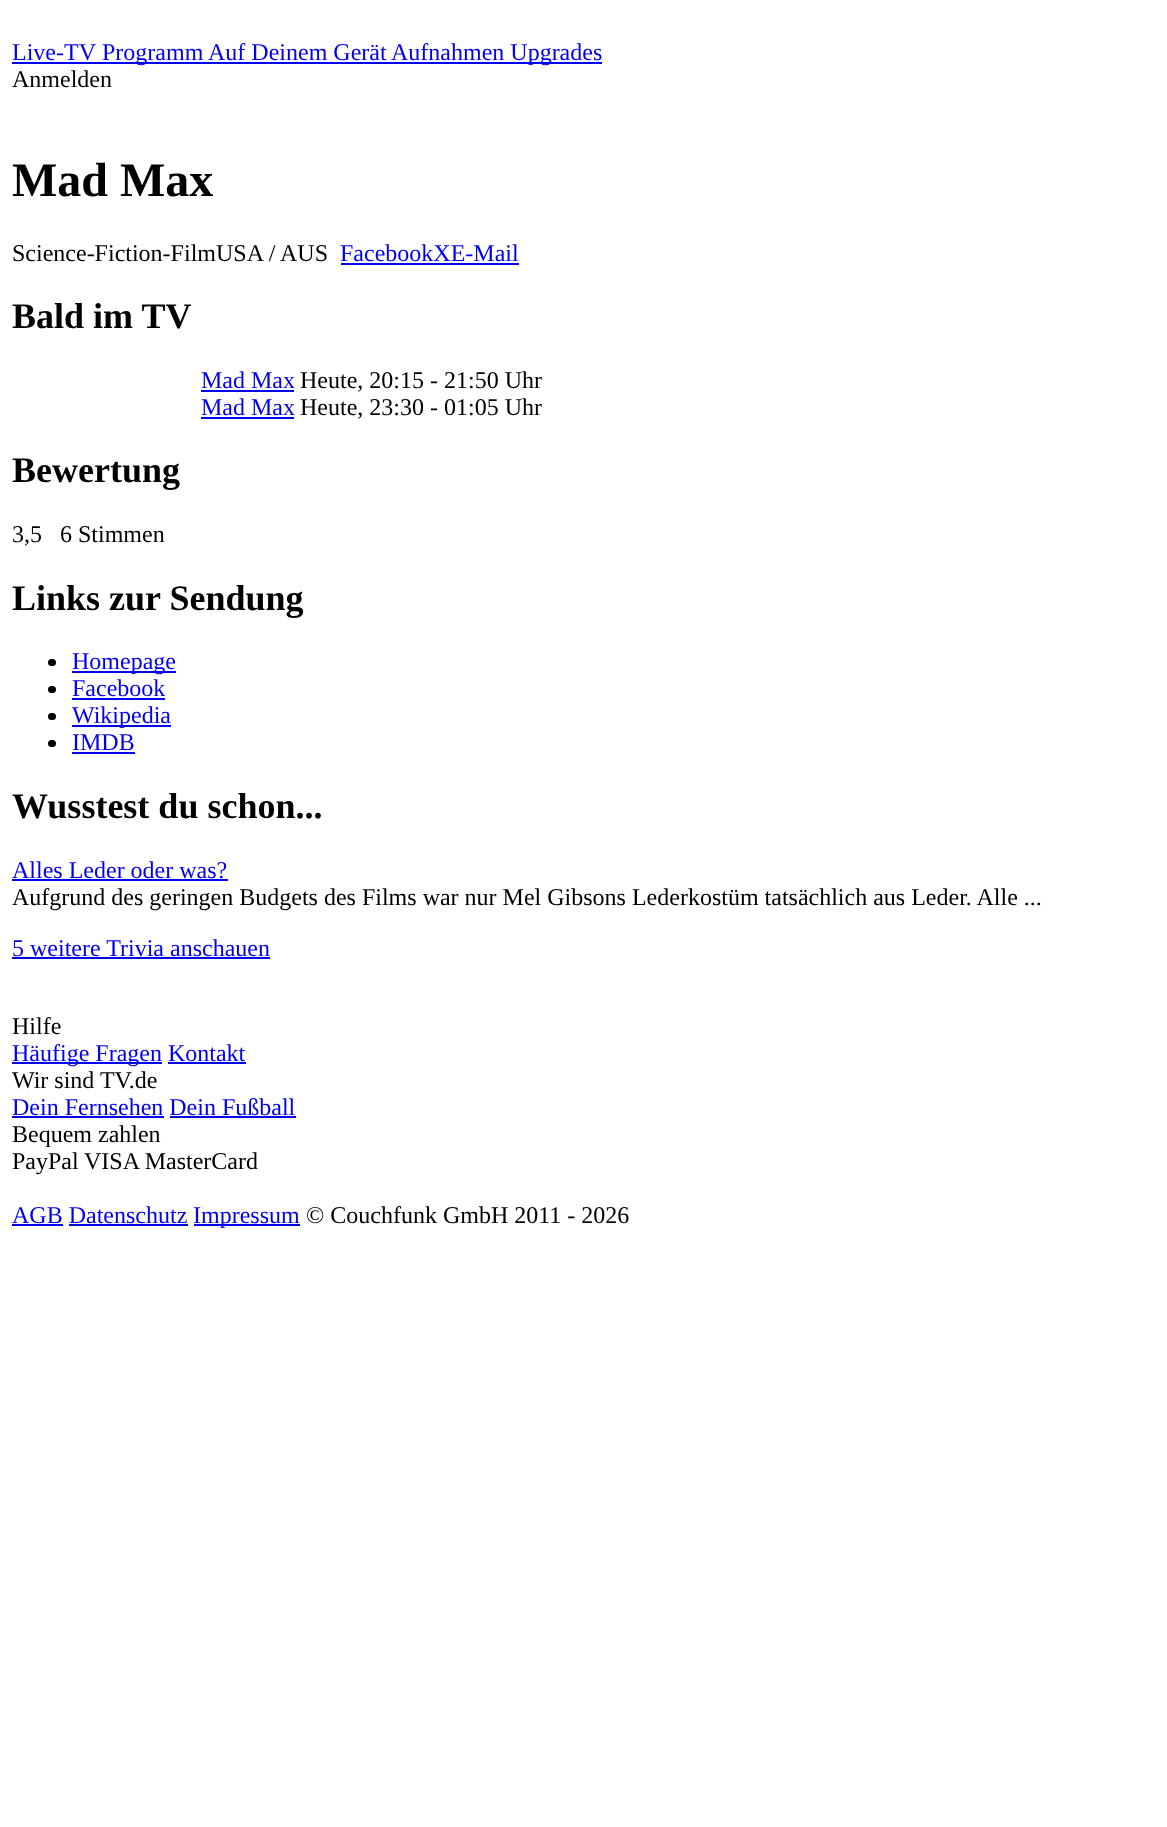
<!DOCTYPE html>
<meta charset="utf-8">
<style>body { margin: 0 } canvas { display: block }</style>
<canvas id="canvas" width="1167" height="1827"></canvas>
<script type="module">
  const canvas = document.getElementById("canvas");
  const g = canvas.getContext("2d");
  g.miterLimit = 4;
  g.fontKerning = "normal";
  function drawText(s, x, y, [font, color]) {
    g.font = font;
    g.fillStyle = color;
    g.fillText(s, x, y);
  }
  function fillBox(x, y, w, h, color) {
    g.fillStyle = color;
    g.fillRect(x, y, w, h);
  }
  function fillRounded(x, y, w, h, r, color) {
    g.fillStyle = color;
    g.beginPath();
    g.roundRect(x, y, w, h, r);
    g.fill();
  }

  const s1 = ["24px Liberation Serif", "#0000EE"];
  const s2 = ["24px Liberation Serif", "#000000"];
  const s3 = ["bold 48px Liberation Serif", "#000000"];
  const s4 = ["bold 36px Liberation Serif", "#000000"];

  fillBox(0, 0, 1167, 1827, "#FFFFFF");
  drawText("Live-TV", 12, 60, s1);
  fillBox(12, 62, 590, 2, "#0000EE");
  drawText("Programm", 102, 60, s1);
  drawText("Auf Deinem Gerät", 208, 60, s1);
  drawText("Aufnahmen Upgrades", 391, 60, s1);
  drawText("Anmelden", 12, 87, s2);
  drawText("Mad Max", 12, 196, s3);
  drawText("Science-Fiction-FilmUSA / AUS", 12, 261, s2);
  drawText("FacebookXE-Mail", 340, 261, s1);
  fillBox(341, 263, 178, 2, "#0000EE");
  drawText("Bald im TV", 12, 328, s4);
  drawText("Mad Max", 201, 388, s1);
  fillBox(201, 390, 93, 2, "#0000EE");
  drawText("Heute, 20:15 - 21:50 Uhr", 300, 388, s2);
  drawText("Mad Max", 201, 415, s1);
  fillBox(201, 417, 93, 2, "#0000EE");
  drawText("Heute, 23:30 - 01:05 Uhr", 300, 415, s2);
  drawText("Bewertung", 12, 482, s4);
  drawText("3,5", 12, 542, s2);
  drawText("6 Stimmen", 60, 542, s2);
  drawText("Links zur Sendung", 12, 610, s4);
  fillRounded(48, 659, 8, 7, 3.5, "#000000");
  fillBox(72, 671, 104, 2, "#0000EE");
  drawText("Homepage", 72, 669, s1);
  fillRounded(48, 686, 8, 7, 3.5, "#000000");
  drawText("Facebook", 72, 696, s1);
  fillBox(72, 698, 93, 2, "#0000EE");
  fillRounded(48, 713, 8, 7, 3.5, "#000000");
  fillBox(72, 725, 99, 2, "#0000EE");
  drawText("Wikipedia", 72, 723, s1);
  fillRounded(48, 740, 8, 7, 3.5, "#000000");
  drawText("IMDB", 72, 750, s1);
  fillBox(72, 752, 63, 2, "#0000EE");
  drawText("Wusstest du schon...", 12, 818, s4);
  drawText("Alles Leder oder was?", 12, 878, s1);
  fillBox(12, 879, 216, 2, "#0000EE");
  drawText("Aufgrund des geringen Budgets des Films war nur Mel Gibsons Lederkostüm tatsächlich aus Leder. Alle ...", 12, 905, s2);
  drawText("5 weitere Trivia anschauen", 12, 956, s1);
  fillBox(12, 957, 258, 2, "#0000EE");
  drawText("Hilfe", 12, 1034, s2);
  fillBox(12, 1062, 150, 2, "#0000EE");
  drawText("Häufige Fragen Kontakt", 12, 1061, s1);
  fillBox(168, 1062, 78, 2, "#0000EE");
  drawText("Wir sind TV.de", 12, 1088, s2);
  drawText("Dein Fernsehen Dein Fußball", 12, 1115, s1);
  fillBox(12, 1116, 152, 2, "#0000EE");
  fillBox(170, 1116, 126, 2, "#0000EE");
  drawText("Bequem zahlen", 12, 1142, s2);
  drawText("PayPal", 12, 1169, s2);
  drawText("VISA MasterCard", 84, 1169, s2);
  drawText("AGB Datenschutz", 12, 1223, s1);
  fillBox(12, 1224, 51, 2, "#0000EE");
  fillBox(194, 1224, 106, 2, "#0000EE");
  drawText("Impressum", 193, 1223, s1);
  drawText("© Couchfunk GmbH 2011 - 2026", 306, 1223, s2);
  fillBox(69, 1224, 119, 2, "#0000EE");
</script>
